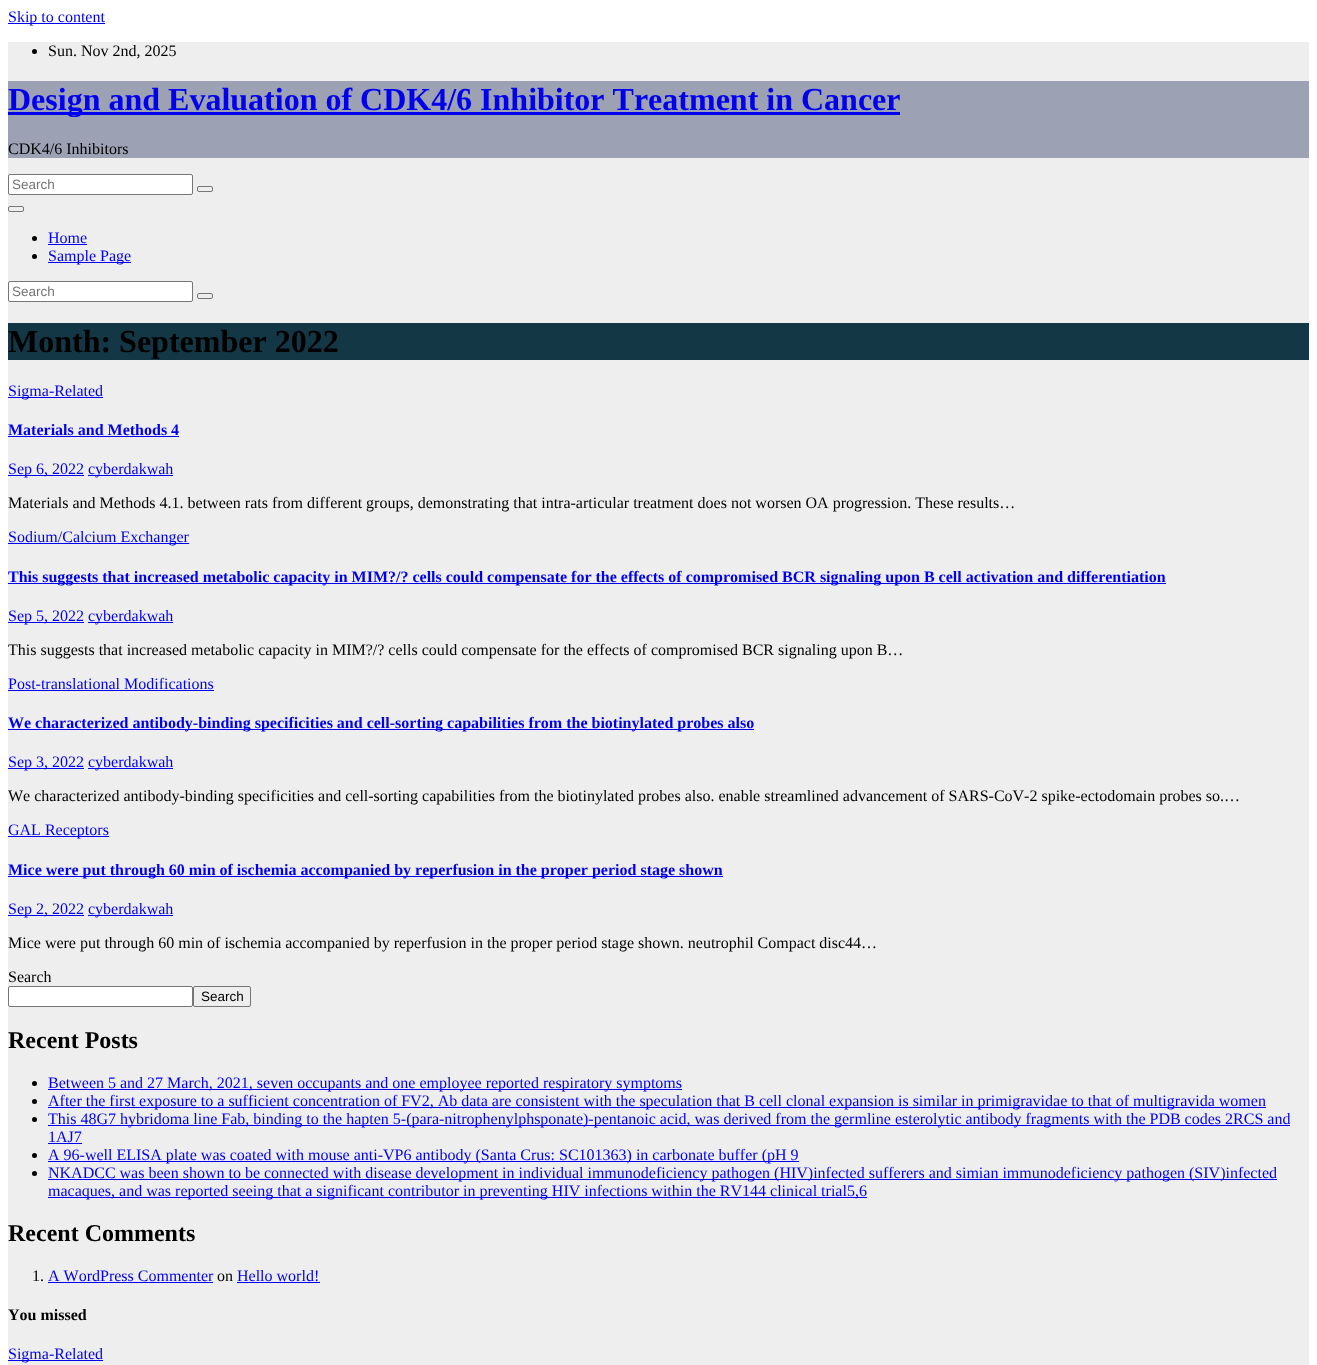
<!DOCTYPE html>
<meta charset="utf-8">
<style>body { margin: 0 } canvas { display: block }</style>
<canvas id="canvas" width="1317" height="1365"></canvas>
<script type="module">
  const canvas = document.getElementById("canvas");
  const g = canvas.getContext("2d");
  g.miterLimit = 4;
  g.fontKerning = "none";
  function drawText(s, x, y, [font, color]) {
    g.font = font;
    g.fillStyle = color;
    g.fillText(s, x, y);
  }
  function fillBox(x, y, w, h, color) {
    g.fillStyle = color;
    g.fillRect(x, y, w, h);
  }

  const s1 = ["16px Liberation Serif", "#0000EE"];
  const s2 = ["16px Liberation Serif", "#000000"];
  const s3 = ["bold 32px Liberation Serif", "#0000EE"];
  const s4 = ["13.5px Liberation Sans", "#757575"];
  const s5 = ["bold 32px Liberation Serif", "#000000"];
  const s6 = ["bold 16px Liberation Serif", "#0000EE"];
  const s7 = ["13.5px Liberation Sans", "#000000"];
  const s8 = ["bold 24px Liberation Serif", "#000000"];
  const s9 = ["bold 16px Liberation Serif", "#000000"];

  fillBox(0, 0, 1317, 1365, "#FFFFFF");
  fillBox(8, 23, 97, 1, "#0000EE");
  drawText("Skip to content", 8, 22, s1);
  fillBox(8, 42, 1301, 1323, "#EEEEEE");
  g.fillStyle = "#000000";
  g.beginPath();
  g.arc(34.5, 51.5, 2.5, 0, Math.PI * 2);
  g.fill();
  drawText("Sun. Nov 2nd, 2025", 48, 56, s2);
  fillBox(8, 81, 1301, 77, "#9CA2B3");
  fillBox(8, 112, 892, 3, "#0000EE");
  drawText("Design and Evaluation of CDK4/6 Inhibitor Treatment in Cancer", 8, 110, s3);
  drawText("CDK4/6 Inhibitors", 8, 154, s2);
  g.fillStyle = "#FFFFFF";
  g.beginPath();
  g.roundRect(8.5, 174.5, 184, 20, 1.5);
  g.fill();
  g.strokeStyle = "#767676";
  g.stroke();
  drawText("Search", 12, 189, s4);
  g.beginPath();
  g.roundRect(197.5, 186.5, 15, 5, 1.5);
  g.stroke();
  g.beginPath();
  g.roundRect(8.5, 206.5, 15, 5, 1.5);
  g.stroke();
  g.fillStyle = "#000000";
  g.beginPath();
  g.arc(34.5, 238.5, 2.5, 0, Math.PI * 2);
  g.fill();
  drawText("Home", 48, 243, s1);
  fillBox(48, 244, 39, 1, "#0000EE");
  g.fillStyle = "#000000";
  g.beginPath();
  g.arc(34.5, 256.5, 2.5, 0, Math.PI * 2);
  g.fill();
  fillBox(48, 262, 83, 1, "#0000EE");
  drawText("Sample Page", 48, 261, s1);
  g.fillStyle = "#FFFFFF";
  g.beginPath();
  g.roundRect(8.5, 281.5, 184, 20, 1.5);
  g.fill();
  g.stroke();
  drawText("Search", 12, 296, s4);
  g.beginPath();
  g.roundRect(197.5, 293.5, 15, 5, 1.5);
  g.stroke();
  fillBox(8, 323, 1301, 37, "#143745");
  drawText("Month: September 2022", 8, 352, s5);
  fillBox(8, 397, 95, 1, "#0000EE");
  drawText("Sigma-Related", 8, 396, s1);
  drawText("Materials and Methods 4", 8, 435, s6);
  fillBox(8, 436, 171, 1, "#0000EE");
  fillBox(8, 475, 76, 1, "#0000EE");
  drawText("Sep 6, 2022", 8, 474, s1);
  fillBox(88, 475, 85, 1, "#0000EE");
  drawText("cyberdakwah", 88, 474, s1);
  drawText("Materials and Methods 4.1. between rats from different groups, demonstrating that intra-articular treatment does not worsen OA progression. These results…", 8, 508, s2);
  fillBox(8, 543, 181, 1, "#0000EE");
  drawText("Sodium/Calcium Exchanger", 8, 542, s1);
  fillBox(8, 583, 1158, 1, "#0000EE");
  drawText("This suggests that increased metabolic capacity in MIM?/? cells could compensate for the effects of compromised BCR signaling upon B cell activation and differentiation", 8, 582, s6);
  fillBox(8, 622, 76, 1, "#0000EE");
  drawText("Sep 5, 2022", 8, 621, s1);
  fillBox(88, 622, 85, 1, "#0000EE");
  drawText("cyberdakwah", 88, 621, s1);
  drawText("This suggests that increased metabolic capacity in MIM?/? cells could compensate for the effects of compromised BCR signaling upon B…", 8, 655, s2);
  drawText("Post-translational Modifications", 8, 689, s1);
  fillBox(8, 690, 206, 1, "#0000EE");
  fillBox(8, 729, 746, 1, "#0000EE");
  drawText("We characterized antibody-binding specificities and cell-sorting capabilities from the biotinylated probes also", 8, 728, s6);
  fillBox(8, 768, 76, 1, "#0000EE");
  drawText("Sep 3, 2022", 8, 767, s1);
  fillBox(88, 768, 85, 1, "#0000EE");
  drawText("cyberdakwah", 88, 767, s1);
  drawText("We characterized antibody-binding specificities and cell-sorting capabilities from the biotinylated probes also. enable streamlined advancement of SARS-CoV-2 spike-ectodomain probes so.…", 8, 801, s2);
  fillBox(8, 836, 101, 1, "#0000EE");
  drawText("GAL Receptors", 8, 835, s1);
  fillBox(8, 876, 715, 1, "#0000EE");
  drawText("Mice were put through 60 min of ischemia accompanied by reperfusion in the proper period stage shown", 8, 875, s6);
  fillBox(8, 915, 76, 1, "#0000EE");
  drawText("Sep 2, 2022", 8, 914, s1);
  fillBox(88, 915, 85, 1, "#0000EE");
  drawText("cyberdakwah", 88, 914, s1);
  drawText("Mice were put through 60 min of ischemia accompanied by reperfusion in the proper period stage shown. neutrophil Compact disc44…", 8, 948, s2);
  drawText("Search", 8, 982, s2);
  g.fillStyle = "#FFFFFF";
  g.beginPath();
  g.roundRect(8.5, 986.5, 184, 20, 1.5);
  g.fill();
  g.stroke();
  g.beginPath();
  g.roundRect(193.5, 986.5, 57, 20, 1.5);
  g.stroke();
  drawText("Search", 201, 1001, s7);
  drawText("Recent Posts", 8, 1048, s8);
  g.beginPath();
  g.arc(34.5, 1083.5, 2.5, 0, Math.PI * 2);
  g.fill();
  fillBox(48, 1089, 634, 1, "#0000EE");
  drawText("Between 5 and 27 March, 2021, seven occupants and one employee reported respiratory symptoms", 48, 1088, s1);
  g.fillStyle = "#000000";
  g.beginPath();
  g.arc(34.5, 1101.5, 2.5, 0, Math.PI * 2);
  g.fill();
  fillBox(48, 1107, 1218, 1, "#0000EE");
  drawText("After the first exposure to a sufficient concentration of FV2, Ab data are consistent with the speculation that B cell clonal expansion is similar in primigravidae to that of multigravida women", 48, 1106, s1);
  g.fillStyle = "#000000";
  g.beginPath();
  g.arc(34.5, 1119.5, 2.5, 0, Math.PI * 2);
  g.fill();
  fillBox(48, 1125, 1242, 1, "#0000EE");
  drawText("This 48G7 hybridoma line Fab, binding to the hapten 5-(para-nitrophenylphsponate)-pentanoic acid, was derived from the germline esterolytic antibody fragments with the PDB codes 2RCS and", 48, 1124, s1);
  drawText("1AJ7", 48, 1142, s1);
  fillBox(48, 1143, 34, 1, "#0000EE");
  g.fillStyle = "#000000";
  g.beginPath();
  g.arc(34.5, 1155.5, 2.5, 0, Math.PI * 2);
  g.fill();
  fillBox(48, 1161, 751, 1, "#0000EE");
  drawText("A 96-well ELISA plate was coated with mouse anti-VP6 antibody (Santa Crus: SC101363) in carbonate buffer (pH 9", 48, 1160, s1);
  g.fillStyle = "#000000";
  g.beginPath();
  g.arc(34.5, 1173.5, 2.5, 0, Math.PI * 2);
  g.fill();
  fillBox(48, 1179, 1229, 1, "#0000EE");
  drawText("NKADCC was been shown to be connected with disease development in individual immunodeficiency pathogen (HIV)infected sufferers and simian immunodeficiency pathogen (SIV)infected", 48, 1178, s1);
  fillBox(48, 1197, 819, 1, "#0000EE");
  drawText("macaques, and was reported seeing that a significant contributor in preventing HIV infections within the RV144 clinical trial5,6", 48, 1196, s1);
  drawText("Recent Comments", 8, 1241, s8);
  drawText("1.", 32, 1281, s2);
  drawText("A WordPress Commenter", 48, 1281, s1);
  fillBox(48, 1282, 165, 1, "#0000EE");
  drawText("on", 217, 1281, s2);
  drawText("Hello world!", 237, 1281, s1);
  fillBox(237, 1282, 83, 1, "#0000EE");
  drawText("You missed", 8, 1320, s9);
  fillBox(8, 1360, 95, 1, "#0000EE");
  drawText("Sigma-Related", 8, 1359, s1);
</script>
